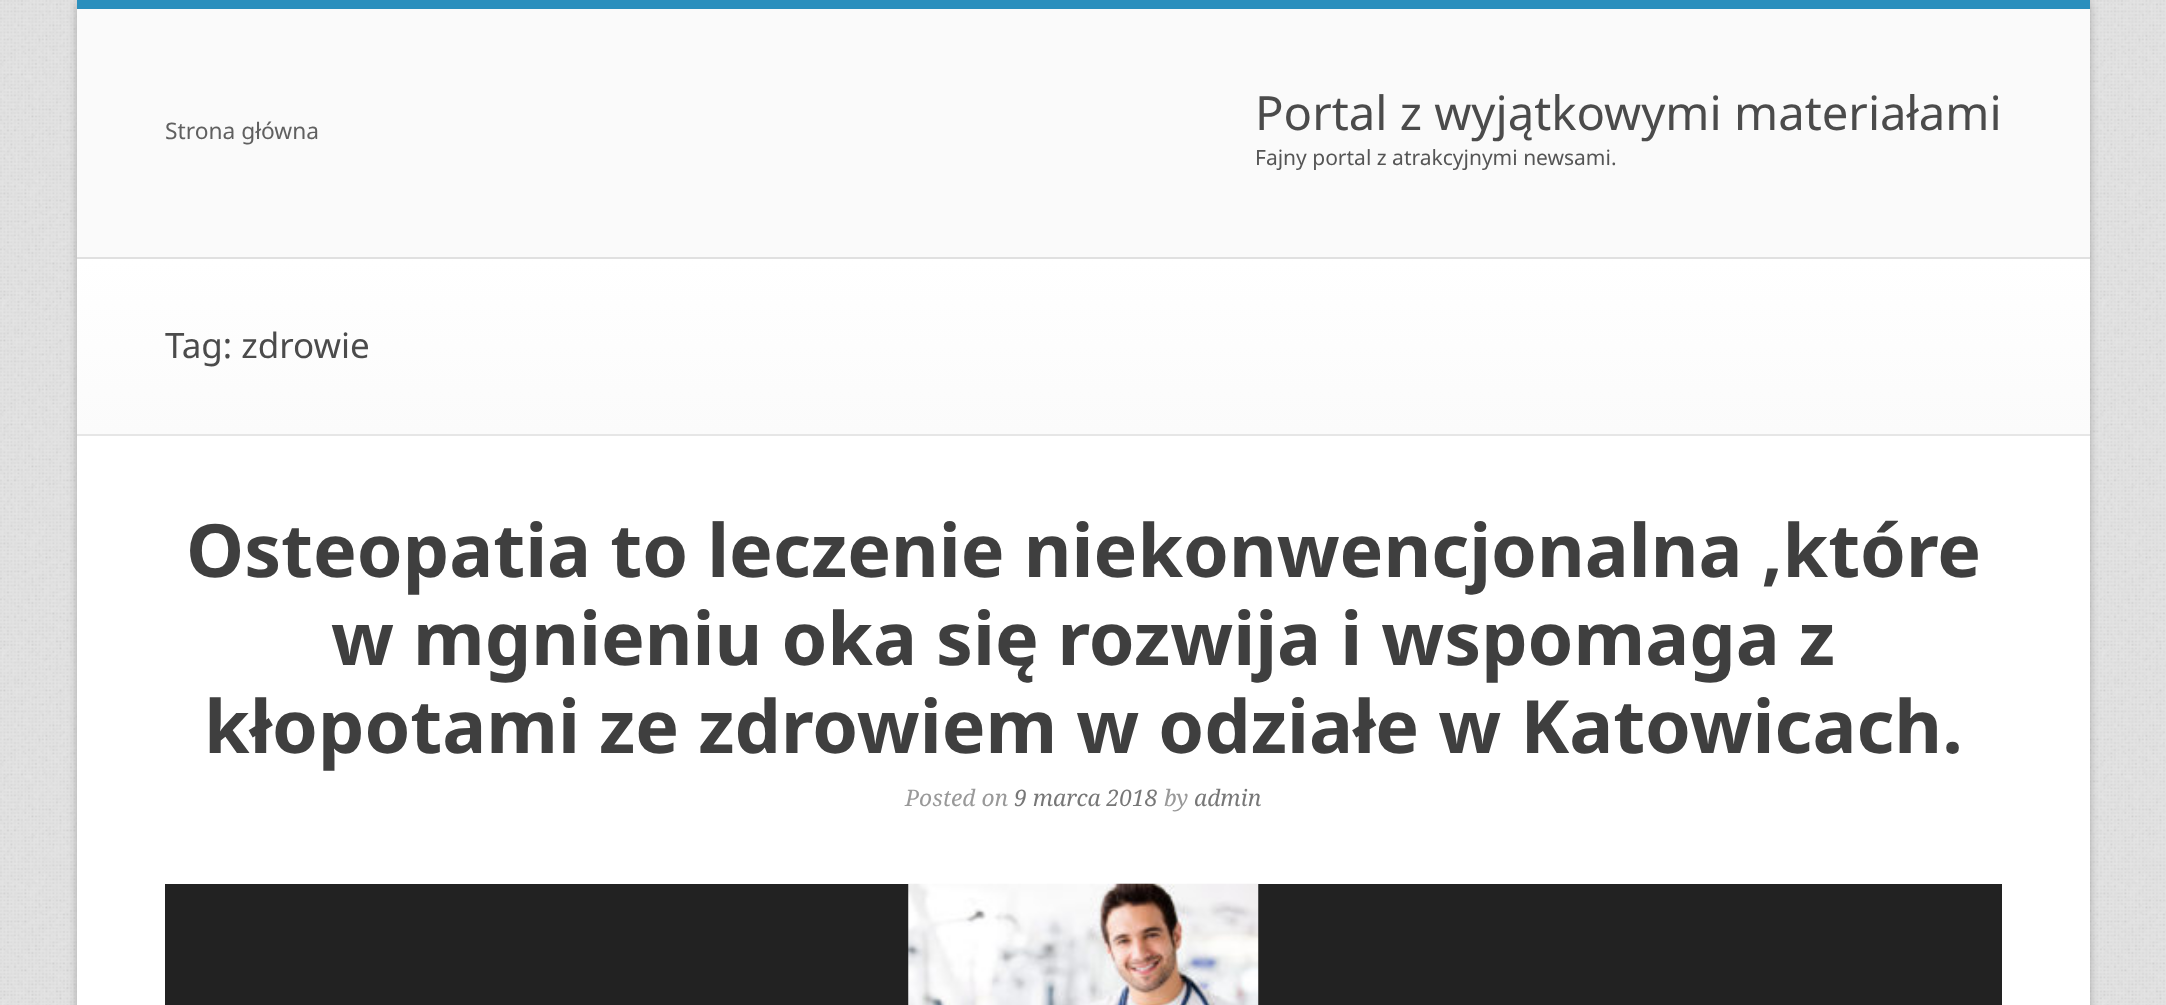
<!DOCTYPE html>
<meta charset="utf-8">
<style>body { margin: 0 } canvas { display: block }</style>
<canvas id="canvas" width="2166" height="1005"></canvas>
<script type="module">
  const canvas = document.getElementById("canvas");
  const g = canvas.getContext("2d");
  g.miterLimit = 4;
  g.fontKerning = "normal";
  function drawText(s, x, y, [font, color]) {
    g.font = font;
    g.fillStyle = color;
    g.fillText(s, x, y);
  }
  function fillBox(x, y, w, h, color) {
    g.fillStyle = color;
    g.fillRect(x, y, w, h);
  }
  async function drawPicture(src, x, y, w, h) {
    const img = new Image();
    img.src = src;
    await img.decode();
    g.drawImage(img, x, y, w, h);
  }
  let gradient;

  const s1 = ["22.75px Noto Sans", "#606060"];
  const s2 = ["47.25px Noto Sans", "#4B4B4B"];
  const s3 = ["21px Noto Sans", "#555555"];
  const s4 = ["35px Noto Sans", "#4B4B4B"];
  const s5 = ["bold 73.5px Noto Sans", "#3F3F3F"];
  const s6 = ["italic 22.75px Noto Serif", "#999999"];
  const s7 = ["italic 22.75px Noto Serif", "#777777"];

  fillBox(0, 0, 2166, 1005, "#FFFFFF");
  await drawPicture("pic1.png", 0, 0, 2166, 1005);
  g.fillStyle = "rgba(0, 0, 0, 0.25)";
  g.filter = "blur(4.5px)";
  g.beginPath();
  g.rect(77, 2, 2013, 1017);
  g.fill();
  g.filter = "none";
  fillBox(77, 436, 2013, 569, "#FFFFFF");
  fillBox(77, 0, 2013, 9, "#2A8FBD");
  fillBox(77, 9, 2013, 248, "#FAFAFA");
  fillBox(77, 257, 2013, 2, "#E0E0E0");
  drawText("Strona główna", 165, 139, s1);
  drawText("Portal z wyjątkowymi materiałami", 1255, 130, s2);
  drawText("Fajny portal z atrakcyjnymi newsami.", 1255, 165, s3);
  gradient = g.createLinearGradient(77, 434, 77, 259);
  gradient.addColorStop(0, "#FBFBFB");
  gradient.addColorStop(1, "#FFFFFF");
  g.fillStyle = gradient;
  g.fillRect(77, 259, 2013, 175);
  fillBox(77, 434, 2013, 2, "#E6E6E6");
  drawText("Tag: zdrowie", 165, 358, s4);
  drawText("Osteopatia to leczenie niekonwencjonalna ,które", 186, 577, s5);
  drawText("w mgnieniu oka się rozwija i wspomaga z", 331, 665, s5);
  drawText("kłopotami ze zdrowiem w odziałe w Katowicach.", 204, 753, s5);
  drawText("Posted on", 905, 806, s6);
  drawText("9 marca 2018", 1014, 806, s7);
  drawText("by", 1164, 806, s6);
  drawText("admin", 1194, 806, s7);
  fillBox(165, 884, 1837, 121, "#222222");
  await drawPicture("pic2.png", 908, 883, 351, 122);
</script>
